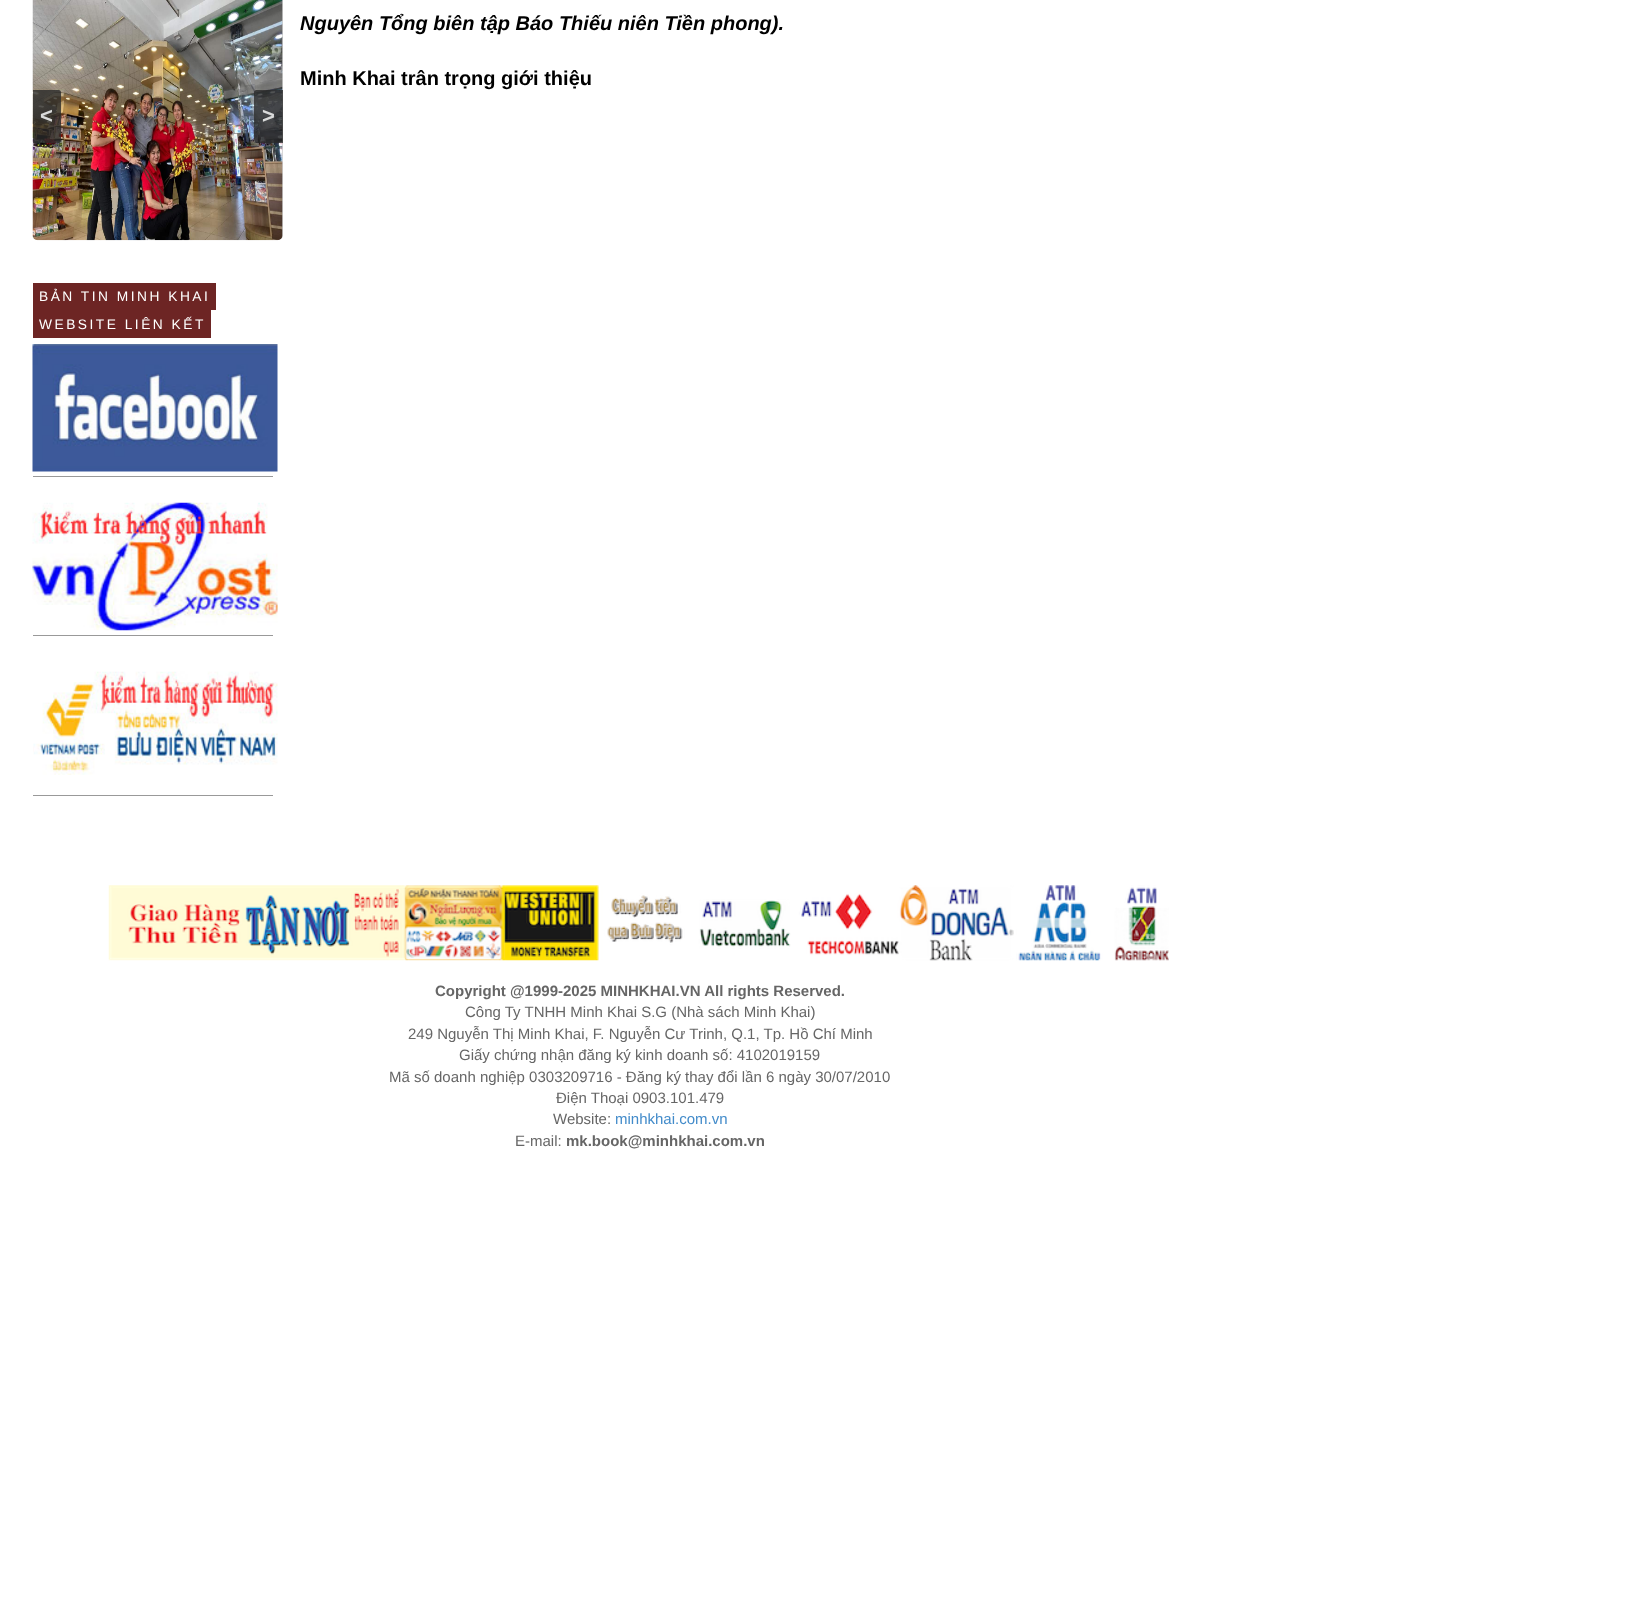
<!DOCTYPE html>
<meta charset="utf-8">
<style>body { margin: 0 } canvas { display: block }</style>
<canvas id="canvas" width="1640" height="1620"></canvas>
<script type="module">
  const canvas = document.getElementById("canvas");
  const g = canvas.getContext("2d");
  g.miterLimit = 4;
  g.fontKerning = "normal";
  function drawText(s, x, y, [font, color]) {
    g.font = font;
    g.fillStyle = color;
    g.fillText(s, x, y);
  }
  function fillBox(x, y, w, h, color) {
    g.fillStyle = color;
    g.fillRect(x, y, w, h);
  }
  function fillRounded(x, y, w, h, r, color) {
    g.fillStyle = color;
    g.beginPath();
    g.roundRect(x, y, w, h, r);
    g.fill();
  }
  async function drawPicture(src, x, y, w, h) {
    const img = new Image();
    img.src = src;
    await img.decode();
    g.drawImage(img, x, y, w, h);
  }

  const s1 = ["italic bold 20px Liberation Sans", "#000000"];
  const s2 = ["bold 20px Liberation Sans", "#000000"];
  const s3 = ["bold 22px Liberation Sans", "#D9DADA"];
  const s4 = ["13.75px Liberation Sans", "#FFFFFF"];
  const s5 = ["bold 15px Liberation Sans", "#666666"];
  const s6 = ["15px Liberation Sans", "#666666"];
  const s7 = ["15px Liberation Sans", "#428BCA"];

  fillBox(0, 0, 1640, 1620, "#FFFFFF");
  drawText("Nguyên Tổng biên tập Báo Thiếu niên Tiền phong).", 300, 30, s1);
  drawText("Minh Khai trân trọng giới thiệu", 300, 85, s2);
  fillRounded(33, -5, 250, 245, 5, "#CCCCCC");
  await drawPicture("pic1.png", 32, 0, 251, 241);
  g.fillStyle = "rgba(42, 42, 42, 0.8)";
  g.beginPath();
  g.roundRect(33, 90, 28, 53, [0, 2.5, 2.5, 0]);
  g.fill();
  drawText("<", 40, 123, s3);
  g.fillStyle = "rgba(42, 42, 42, 0.8)";
  g.beginPath();
  g.roundRect(254, 90, 29, 53, [2.5, 0, 0, 2.5]);
  g.fill();
  drawText(">", 262, 123, s3);
  fillBox(33, 283, 183, 27, "#6D2524");
  g.letterSpacing = "2.5px";
  drawText("BẢN TIN MINH KHAI", 39, 301, s4);
  fillBox(33, 310, 178, 28, "#6D2524");
  drawText("WEBSITE LIÊN KẾT", 39, 329, s4);
  await drawPicture("pic2.png", 32, 344, 246, 128);
  fillBox(33, 476, 240, 1, "#999999");
  await drawPicture("pic3.png", 32, 502, 246, 129);
  fillBox(33, 635, 240, 1, "#999999");
  await drawPicture("pic4.png", 33, 671, 245, 104);
  fillBox(33, 795, 240, 1, "#999999");
  await drawPicture("pic5.png", 108, 885, 1061, 76);
  g.letterSpacing = "0px";
  drawText("Copyright @1999-2025 MINHKHAI.VN All rights Reserved.", 435, 996, s5);
  drawText("Công Ty TNHH Minh Khai S.G (Nhà sách Minh Khai)", 465, 1017, s6);
  drawText("249 Nguyễn Thị Minh Khai, F. Nguyễn Cư Trinh, Q.1, Tp. Hồ Chí Minh", 408, 1039, s6);
  drawText("Giấy chứng nhận đăng ký kinh doanh số: 4102019159", 459, 1060, s6);
  drawText("Mã số doanh nghiệp 0303209716 - Đăng ký thay đổi lần 6 ngày 30/07/2010", 389, 1082, s6);
  drawText("Ðiện Thoại 0903.101.479", 556, 1103, s6);
  drawText("Website:", 553, 1124, s6);
  drawText("minhkhai.com.vn", 615, 1124, s7);
  drawText("E-mail:", 515, 1146, s6);
  drawText("mk.book@minhkhai.com.vn", 566, 1146, s5);
</script>
